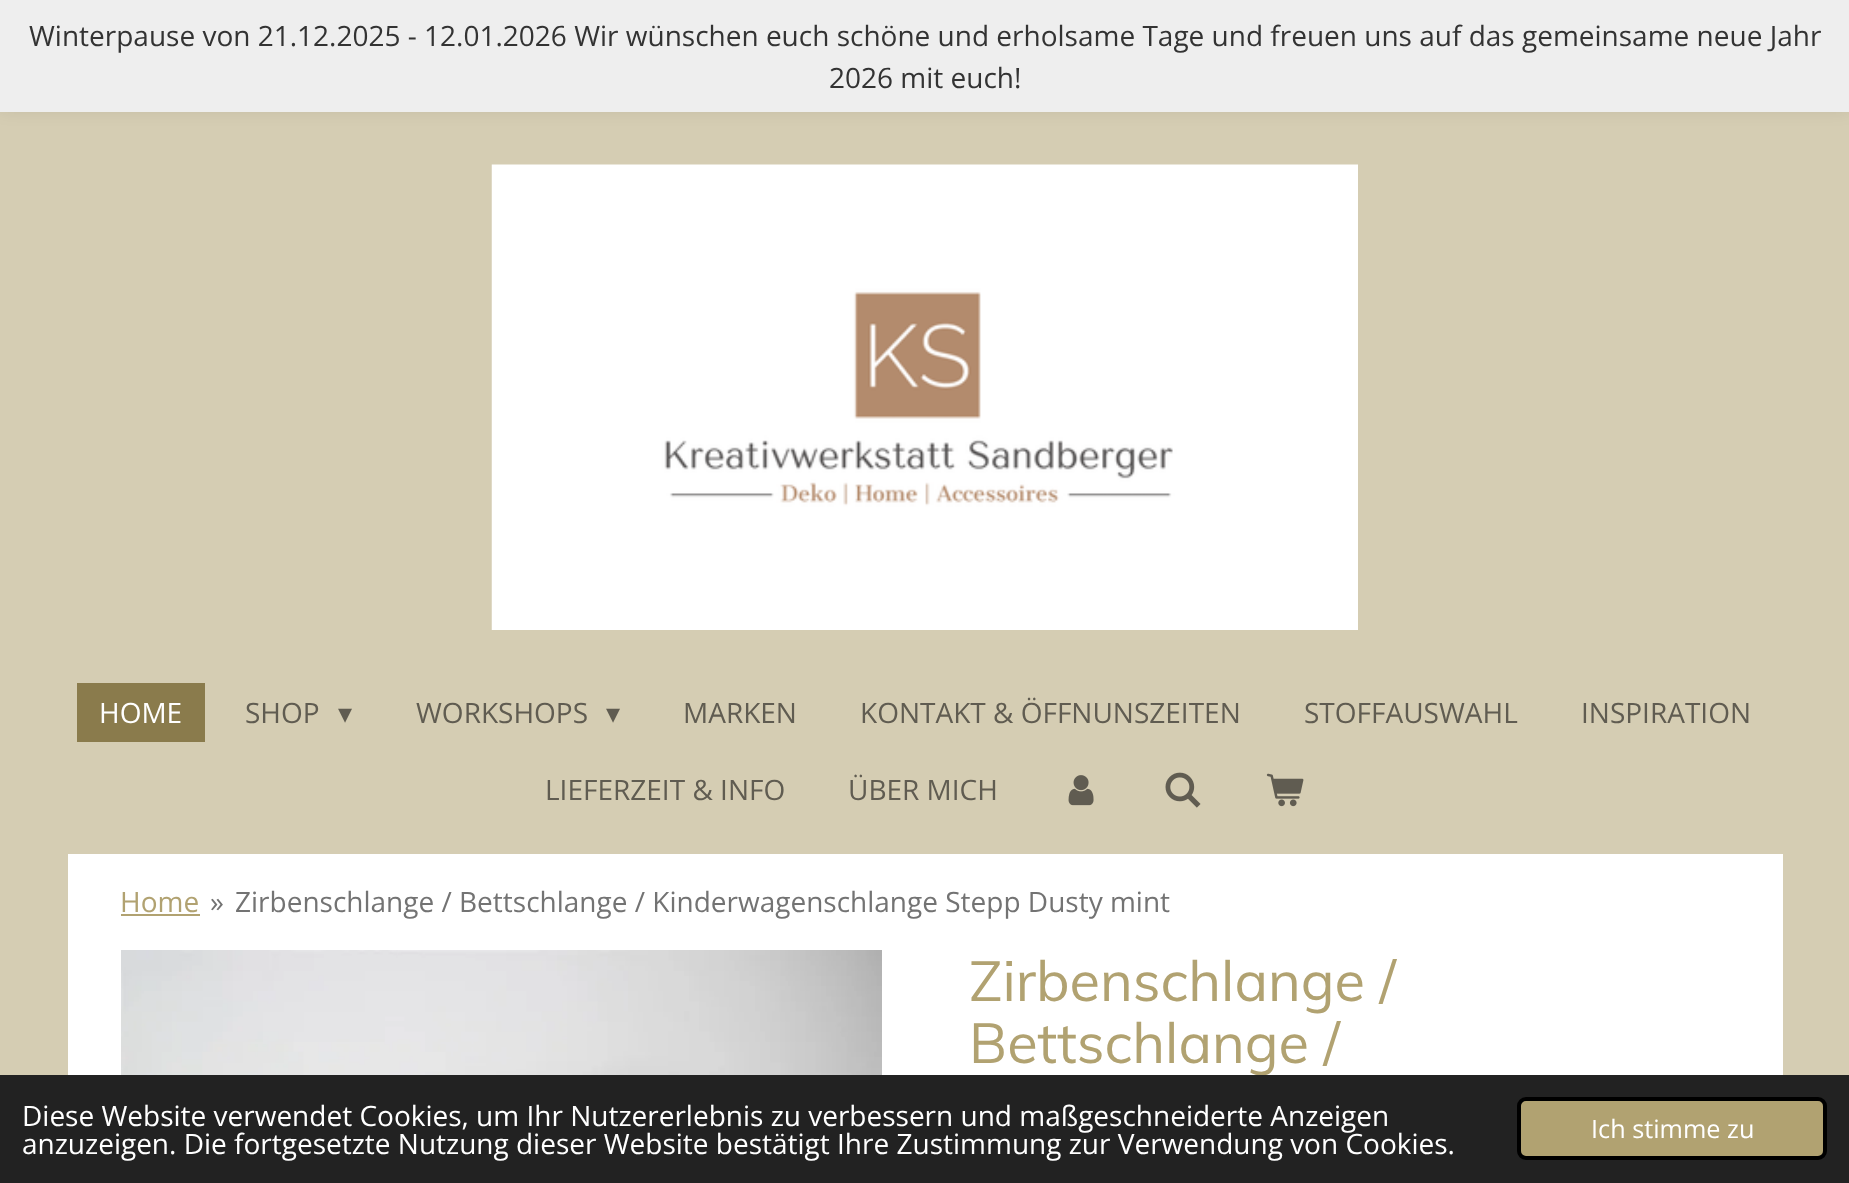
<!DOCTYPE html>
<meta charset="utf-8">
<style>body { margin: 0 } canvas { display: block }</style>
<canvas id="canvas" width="1849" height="1183"></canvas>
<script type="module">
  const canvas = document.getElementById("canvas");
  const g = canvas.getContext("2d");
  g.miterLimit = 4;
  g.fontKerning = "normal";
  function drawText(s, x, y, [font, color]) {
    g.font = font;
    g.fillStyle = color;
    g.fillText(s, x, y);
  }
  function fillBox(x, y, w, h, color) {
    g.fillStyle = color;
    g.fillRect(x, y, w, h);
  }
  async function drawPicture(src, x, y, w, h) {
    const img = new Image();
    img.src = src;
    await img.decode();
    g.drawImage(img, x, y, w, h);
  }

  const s1 = ["28px Open Sans", "#333333"];
  const s2 = ["28px Open Sans", "#FFFFFF"];
  const s3 = ["28px Open Sans", "#605C51"];
  const s4 = ["28px DejaVu Sans", "#605C51"];
  const s5 = ["28px Open Sans", "#B1A271"];
  const s6 = ["28px Open Sans", "#737373"];
  const s7 = ["56px Muli", "#B1A271"];
  const s8 = ["25.25px Open Sans", "#FFFFFF"];

  fillBox(0, 0, 1849, 1183, "#D5CDB3");
  g.fillStyle = "rgba(0, 0, 0, 0.1)";
  g.filter = "blur(9px)";
  g.beginPath();
  g.rect(0, -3, 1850, 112);
  g.fill();
  g.filter = "none";
  fillBox(0, 0, 1849, 112, "#EEEEEE");
  drawText("Winterpause von 21.12.2025 - 12.01.2026 Wir wünschen euch schöne und erholsame Tage und freuen uns auf das gemeinsame neue Jahr", 29, 46, s1);
  drawText("2026 mit euch!", 829, 88, s1);
  await drawPicture("pic1.png", 491, 164, 867, 466);
  fillBox(77, 683, 128, 59, "#8A7B4C");
  drawText("HOME", 99, 723, s2);
  drawText("SHOP", 245, 723, s3);
  drawText("▾", 338, 723, s4);
  drawText("WORKSHOPS", 416, 723, s3);
  drawText("▾", 606, 723, s4);
  drawText("MARKEN", 683, 723, s3);
  drawText("KONTAKT & ÖFFNUNSZEITEN", 860, 723, s3);
  drawText("STOFFAUSWAHL", 1304, 723, s3);
  drawText("INSPIRATION", 1581, 723, s3);
  drawText("LIEFERZEIT & INFO", 545, 800, s3);
  drawText("ÜBER MICH", 848, 800, s3);
  await drawPicture("pic2.png", 1068, 775, 26, 31);
  await drawPicture("pic3.png", 1165, 772, 36, 36);
  await drawPicture("pic4.png", 1266, 773, 38, 34);
  fillBox(68, 854, 1715, 221, "#FFFFFF");
  drawText("Home", 120, 912, s5);
  fillBox(121, 914, 79, 2, "#B1A271");
  drawText("»", 210, 912, s6);
  drawText("Zirbenschlange / Bettschlange / Kinderwagenschlange Stepp Dusty mint", 235, 912, s6);
  await drawPicture("pic5.png", 121, 950, 761, 125);
  drawText("Zirbenschlange /", 969, 1001, s7);
  drawText("Bettschlange /", 969, 1063, s7);
  fillBox(0, 1075, 1849, 108, "#222222");
  drawText("Diese Website verwendet Cookies, um Ihr Nutzererlebnis zu verbessern und maßgeschneiderte Anzeigen", 22, 1126, s2);
  drawText("anzuzeigen. Die fortgesetzte Nutzung dieser Website bestätigt Ihre Zustimmung zur Verwendung von Cookies.", 22, 1154, s2);
  g.fillStyle = "#B1A271";
  g.beginPath();
  g.roundRect(1519, 1099, 306, 59, 7);
  g.fill();
  g.strokeStyle = "#000000";
  g.lineWidth = 4;
  g.stroke();
  drawText("Ich stimme zu", 1591, 1138, s8);
</script>
